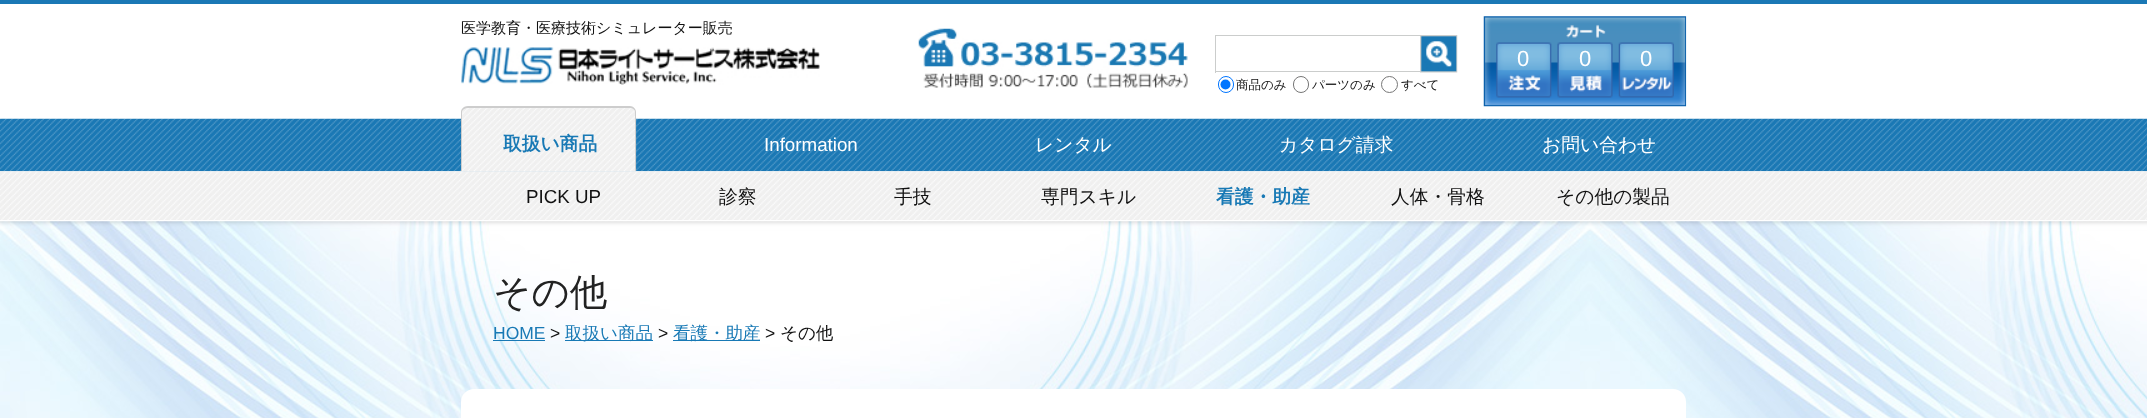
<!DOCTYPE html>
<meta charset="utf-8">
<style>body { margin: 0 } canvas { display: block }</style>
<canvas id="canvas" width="2147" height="418"></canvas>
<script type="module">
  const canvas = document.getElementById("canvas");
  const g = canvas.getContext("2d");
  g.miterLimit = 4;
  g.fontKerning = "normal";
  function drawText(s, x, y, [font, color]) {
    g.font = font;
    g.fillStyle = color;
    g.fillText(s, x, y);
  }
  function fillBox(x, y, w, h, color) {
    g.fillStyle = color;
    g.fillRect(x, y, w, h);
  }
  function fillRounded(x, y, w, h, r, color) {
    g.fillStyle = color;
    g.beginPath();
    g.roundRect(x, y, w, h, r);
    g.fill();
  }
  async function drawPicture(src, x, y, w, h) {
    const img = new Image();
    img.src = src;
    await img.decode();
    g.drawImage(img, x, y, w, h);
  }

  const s1 = ["500 15px WenQuanYi Zen Hei", "#111111"];
  const s2 = ["22px Liberation Sans", "#FFFFFF"];
  const s3 = ["500 12.5px WenQuanYi Zen Hei", "#111111"];
  const s4 = ["bold 18.75px WenQuanYi Zen Hei", "#1879B5"];
  const s5 = ["18.75px Liberation Sans", "#FFFFFF"];
  const s6 = ["500 18.75px WenQuanYi Zen Hei", "#FFFFFF"];
  const s7 = ["18.75px Liberation Sans", "#111111"];
  const s8 = ["500 18.75px WenQuanYi Zen Hei", "#111111"];
  const s9 = ["500 37.5px WenQuanYi Zen Hei", "#222222"];
  const s10 = ["17.5px Liberation Sans", "#1879B5"];
  const s11 = ["17.5px Liberation Sans", "#111111"];
  const s12 = ["500 17.5px WenQuanYi Zen Hei", "#1879B5"];
  const s13 = ["500 17.5px WenQuanYi Zen Hei", "#111111"];

  fillBox(0, 0, 2147, 418, "#FFFFFF");
  fillBox(0, 0, 2147, 4, "#1A78B5");
  drawText("医学教育・医療技術シミュレーター販売", 461, 33, s1);
  await drawPicture("pic1.png", 461, 47, 359, 38);
  await drawPicture("pic2.png", 918, 28, 270, 60);
  await drawPicture("pic3.png", 1483, 16, 204, 91);
  drawText("0", 1517, 66, s2);
  drawText("0", 1579, 66, s2);
  drawText("0", 1640, 66, s2);
  fillBox(1215, 35, 205, 1, "#CBCDCC");
  fillBox(1215, 71, 205, 1, "#CBCDCC");
  fillBox(1215, 35, 1, 38, "#CBCDCC");
  await drawPicture("pic4.png", 1420, 35, 38, 38);
  g.beginPath();
  g.roundRect(1218.5, 76.5, 15, 16, 7.5);
  g.strokeStyle = "#0075FF";
  g.stroke();
  g.fillStyle = "#0075FF";
  g.beginPath();
  g.arc(1225.5, 84.5, 5, 0, Math.PI * 2);
  g.fill();
  drawText("商品のみ", 1236, 89, s3);
  g.beginPath();
  g.roundRect(1293.5, 76.5, 15, 16, 7.5);
  g.strokeStyle = "#767676";
  g.stroke();
  drawText("パーツのみ", 1312, 89, s3);
  g.beginPath();
  g.arc(1389.5, 84.5, 8, 0, Math.PI * 2);
  g.stroke();
  drawText("すべて", 1401, 89, s3);
  await drawPicture("pic5.png", 0, 118, 2147, 54);
  await drawPicture("pic6.png", 461, 106, 176, 65);
  g.fillStyle = "#CDCDCD";
  g.beginPath();
  g.moveTo(468, 106);
  g.lineTo(630, 106);
  g.bezierCurveTo(633, 106, 636, 109, 636, 112);
  g.lineTo(636, 171);
  g.lineTo(461, 171);
  g.lineTo(461, 112);
  g.bezierCurveTo(461, 109, 464, 106, 468, 106);
  g.closePath();
  g.moveTo(468, 108);
  g.lineTo(630, 108);
  g.bezierCurveTo(633, 108, 635, 110, 635, 112);
  g.lineTo(635, 171);
  g.lineTo(462, 171);
  g.lineTo(462, 112);
  g.bezierCurveTo(462, 110, 465, 108, 468, 108);
  g.closePath();
  g.fill("evenodd");
  drawText("取扱い商品", 503, 150, s4);
  drawText("Information", 764, 151, s5);
  drawText("レンタル", 1035, 151, s6);
  drawText("カタログ請求", 1279, 151, s6);
  drawText("お問い合わせ", 1542, 151, s6);
  await drawPicture("pic7.png", 0, 171, 2147, 51);
  fillBox(0, 220, 2147, 1, "#FFFFFF");
  drawText("PICK UP", 526, 203, s7);
  drawText("診察", 719, 203, s8);
  drawText("手技", 894, 203, s8);
  drawText("専門スキル", 1041, 203, s8);
  drawText("看護・助産", 1216, 203, s4);
  drawText("人体・骨格", 1391, 203, s8);
  drawText("その他の製品", 1556, 203, s8);
  await drawPicture("pic8.png", 0, 221, 2147, 197);
  drawText("その他", 493, 305, s9);
  drawText("HOME", 493, 339, s10);
  fillBox(493, 340, 52, 1, "#1879B5");
  drawText(">", 550, 339, s11);
  fillBox(565, 340, 88, 1, "#1879B5");
  drawText("取扱い商品", 565, 339, s12);
  drawText(">", 658, 339, s11);
  fillBox(673, 340, 87, 1, "#1879B5");
  drawText("看護・助産", 673, 339, s12);
  drawText(">", 765, 339, s11);
  drawText("その他", 780, 339, s13);
  fillRounded(461, 389, 1225, 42, 13, "#FFFFFF");
</script>
